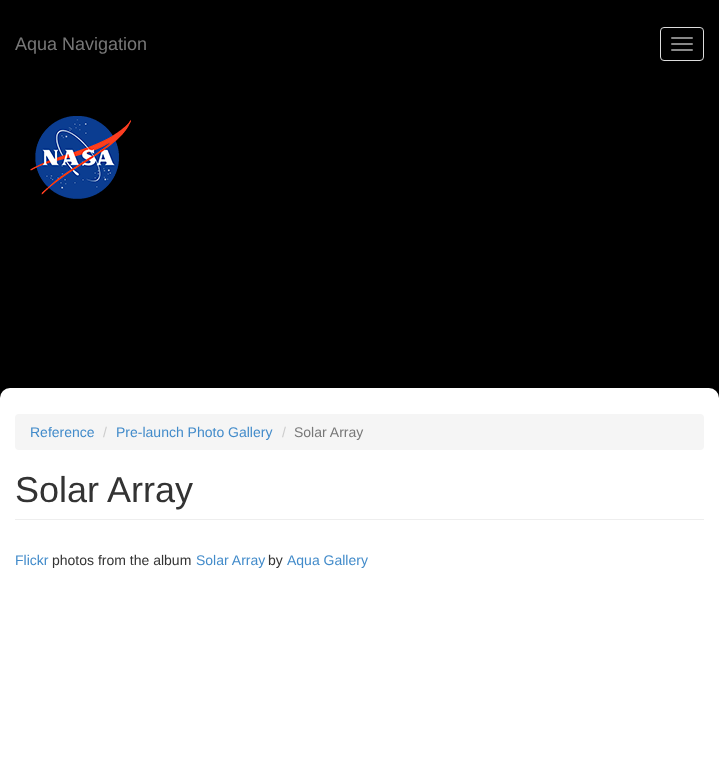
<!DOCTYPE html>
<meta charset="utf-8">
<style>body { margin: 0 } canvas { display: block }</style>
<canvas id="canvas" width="719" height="757"></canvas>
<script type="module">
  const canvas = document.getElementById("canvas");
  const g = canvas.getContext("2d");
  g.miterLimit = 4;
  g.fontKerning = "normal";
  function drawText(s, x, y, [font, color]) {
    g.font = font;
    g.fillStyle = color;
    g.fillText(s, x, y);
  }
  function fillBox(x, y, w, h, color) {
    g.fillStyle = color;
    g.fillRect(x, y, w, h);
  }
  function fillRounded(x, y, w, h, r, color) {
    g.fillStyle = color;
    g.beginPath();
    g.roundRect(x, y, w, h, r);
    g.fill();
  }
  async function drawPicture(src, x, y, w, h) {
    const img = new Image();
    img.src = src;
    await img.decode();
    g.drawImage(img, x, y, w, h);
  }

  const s1 = ["18px Liberation Sans", "#777777"];
  const s2 = ["14px Liberation Sans", "#428BCA"];
  const s3 = ["14px Liberation Sans", "#CCCCCC"];
  const s4 = ["14px Liberation Sans", "#777777"];
  const s5 = ["36px Liberation Sans", "#333333"];
  const s6 = ["14px Liberation Sans", "#333333"];

  fillBox(0, 0, 719, 757, "#000000");
  drawText("Aqua Navigation", 15, 50, s1);
  g.beginPath();
  g.roundRect(660.5, 27.5, 43, 33, 3.5);
  g.strokeStyle = "#DDDDDD";
  g.stroke();
  fillRounded(671, 37, 22, 2, 1, "#888888");
  fillRounded(671, 43, 22, 2, 1, "#888888");
  fillRounded(671, 49, 22, 2, 1, "#888888");
  await drawPicture("pic1.png", 30, 116, 101, 83);
  fillRounded(0, 388, 719, 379, 10, "#FFFFFF");
  fillRounded(15, 414, 689, 36, 4, "#F5F5F5");
  drawText("Reference", 30, 437, s2);
  drawText("/", 103, 437, s3);
  drawText("Pre-launch Photo Gallery", 116, 437, s2);
  drawText("/", 282, 437, s3);
  drawText("Solar Array", 294, 437, s4);
  fillBox(15, 519, 689, 1, "#EEEEEE");
  drawText("Solar Array", 15, 502, s5);
  drawText("Flickr", 15, 565, s2);
  drawText("photos from the album", 52, 565, s6);
  drawText("Solar Array", 196, 565, s2);
  drawText("by", 268, 565, s6);
  drawText("Aqua Gallery", 287, 565, s2);
</script>
